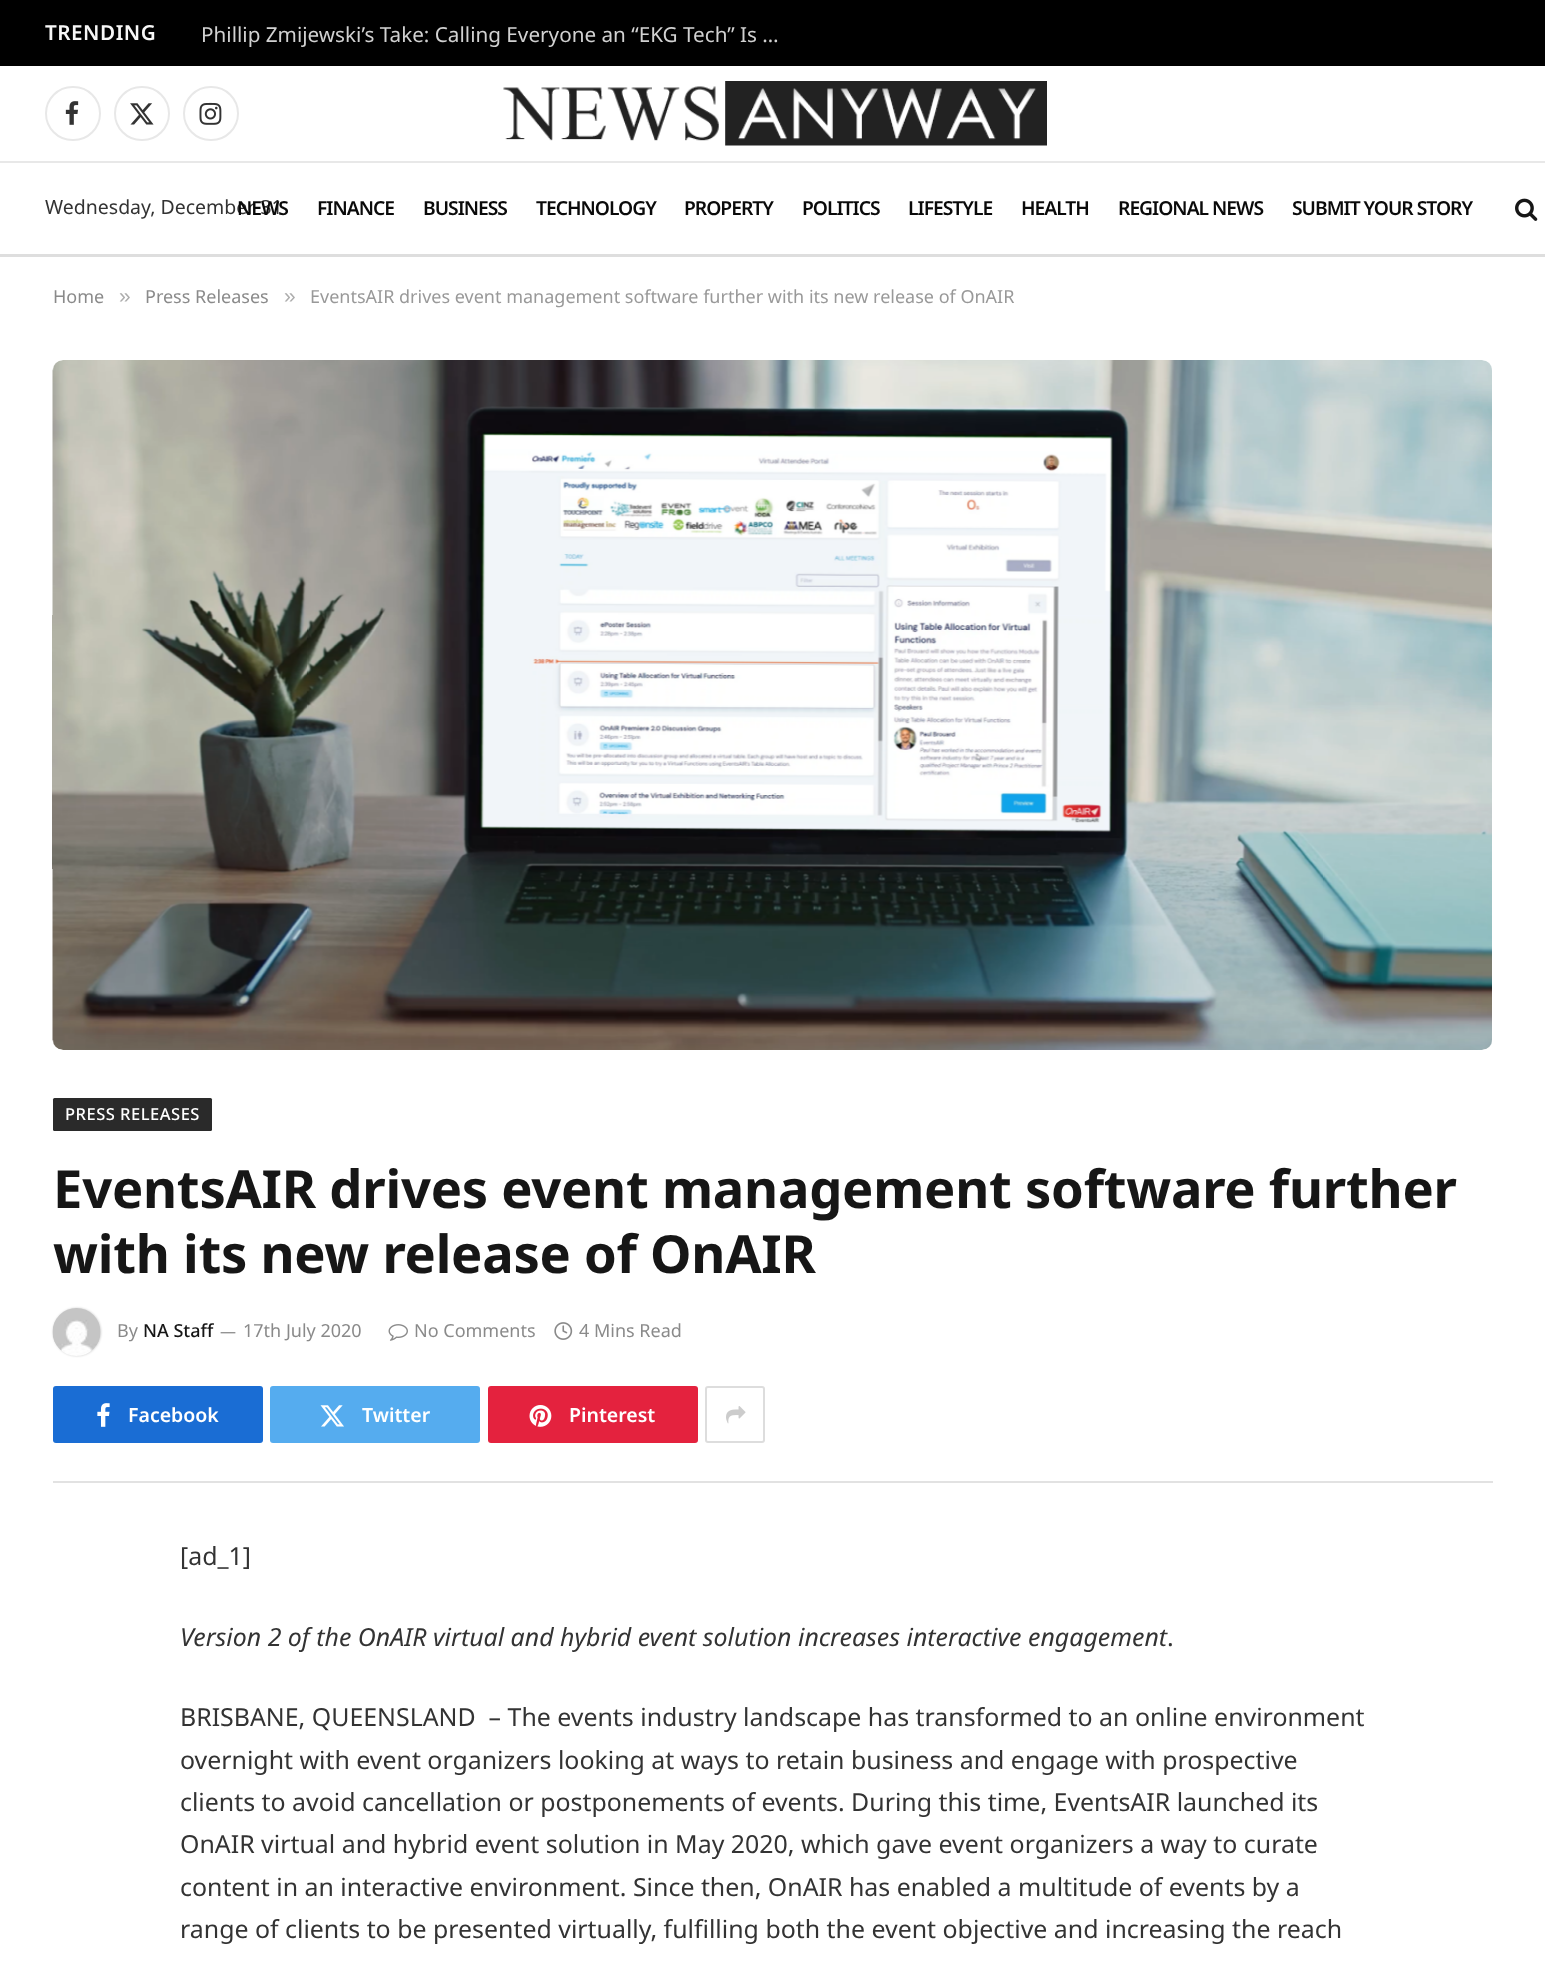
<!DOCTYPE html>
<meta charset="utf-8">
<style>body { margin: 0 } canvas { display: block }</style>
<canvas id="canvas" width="1545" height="1974"></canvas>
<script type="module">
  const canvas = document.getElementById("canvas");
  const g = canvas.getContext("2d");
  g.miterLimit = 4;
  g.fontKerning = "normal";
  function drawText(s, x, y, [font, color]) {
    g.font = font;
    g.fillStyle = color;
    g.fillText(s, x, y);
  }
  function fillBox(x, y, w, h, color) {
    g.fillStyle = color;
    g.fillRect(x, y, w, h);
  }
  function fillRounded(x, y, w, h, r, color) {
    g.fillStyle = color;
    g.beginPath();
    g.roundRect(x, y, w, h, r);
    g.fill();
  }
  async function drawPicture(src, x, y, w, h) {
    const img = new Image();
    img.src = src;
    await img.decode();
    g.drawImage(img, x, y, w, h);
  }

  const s1 = ["600 20.7px Noto Sans", "#F7F7F7"];
  const s2 = ["20.7px Noto Sans", "#D1D1D1"];
  const s3 = ["19.5px Noto Sans", "#333333"];
  const s4 = ["600 19.25px Noto Sans", "#0A0A0A"];
  const s5 = ["18px Noto Sans", "#8A8A8A"];
  const s6 = ["21px Liberation Sans", "#ADADAD"];
  const s7 = ["18px Noto Sans", "#999999"];
  const s8 = ["500 16.5px Noto Sans", "#FFFFFF"];
  const s9 = ["bold 52.5px Noto Sans", "#161616"];
  const s10 = ["500 18px Noto Sans", "#161616"];
  const s11 = ["16px Noto Sans", "#8A8A8A"];
  const s12 = ["600 19.5px Noto Sans", "#FFFFFF"];
  const s13 = ["24.9px Noto Sans", "#333333"];
  const s14 = ["italic 24.9px Noto Sans", "#333333"];

  fillBox(0, 0, 1545, 1974, "#FFFFFF");
  fillBox(0, 0, 1545, 66, "#000000");
  g.letterSpacing = "0.5px";
  drawText("TRENDING", 45, 40, s1);
  g.letterSpacing = "0px";
  drawText("Phillip Zmijewski’s Take: Calling Everyone an “EKG Tech” Is …", 201, 42, s2);
  g.beginPath();
  g.roundRect(46, 87, 54, 53, 26.5);
  g.strokeStyle = "#E8E8E8";
  g.lineWidth = 2;
  g.stroke();
  await drawPicture("pic1.png", 65, 101, 14, 24);
  g.beginPath();
  g.roundRect(115, 87, 54, 53, 26.5);
  g.stroke();
  await drawPicture("pic2.png", 130, 103, 24, 22);
  g.beginPath();
  g.roundRect(184, 87, 54, 53, 26.5);
  g.stroke();
  await drawPicture("pic3.png", 199, 102, 23, 23);
  await drawPicture("pic4.png", 503, 81, 544, 65);
  fillBox(0, 161, 1545, 2, "#E8E8E8");
  fillBox(0, 254, 1545, 3, "#DEDEDE");
  drawText("Wednesday, December 31", 45, 214, s3);
  g.letterSpacing = "-1px";
  drawText("NEWS", 237, 215, s4);
  drawText("FINANCE", 317, 215, s4);
  drawText("BUSINESS", 423, 215, s4);
  drawText("TECHNOLOGY", 536, 215, s4);
  drawText("PROPERTY", 684, 215, s4);
  drawText("POLITICS", 802, 215, s4);
  drawText("LIFESTYLE", 908, 215, s4);
  drawText("HEALTH", 1021, 215, s4);
  drawText("REGIONAL NEWS", 1118, 215, s4);
  drawText("SUBMIT YOUR STORY", 1292, 215, s4);
  await drawPicture("pic5.png", 1515, 198, 23, 23);
  g.letterSpacing = "0px";
  drawText("Home", 53, 303, s5);
  drawText("»", 119, 303, s6);
  drawText("Press Releases", 145, 303, s5);
  drawText("»", 284, 303, s6);
  drawText("EventsAIR drives event management software further with its new release of OnAIR", 310, 303, s7);
  await drawPicture("pic6.png", 52, 360, 1440, 690);
  fillBox(53, 1481, 1440, 2, "#E2E2E2");
  fillRounded(53, 1098, 159, 33, 1.5, "#2A2A2A");
  g.letterSpacing = "0.5px";
  drawText("PRESS RELEASES", 65, 1120, s8);
  g.letterSpacing = "-0.25px";
  drawText("EventsAIR drives event management software further", 53, 1208, s9);
  drawText("with its new release of OnAIR", 53, 1273, s9);
  g.fillStyle = "rgba(0, 0, 0, 0.2)";
  g.filter = "blur(1px)";
  g.beginPath();
  g.roundRect(53, 1308, 48, 48, 24);
  g.fill();
  g.filter = "none";
  await drawPicture("pic7.png", 52, 1308, 49, 48);
  g.letterSpacing = "0px";
  drawText("By", 117, 1337, s5);
  drawText("NA Staff", 143, 1337, s10);
  drawText("—", 220, 1337, s11);
  drawText("17th July 2020", 243, 1337, s5);
  await drawPicture("pic8.png", 388, 1324, 20, 17);
  drawText("No Comments", 414, 1337, s5);
  await drawPicture("pic9.png", 554, 1322, 19, 18);
  drawText("4 Mins Read", 579, 1337, s5);
  fillRounded(53, 1386, 210, 57, 3, "#1A6DD4");
  await drawPicture("pic10.png", 97, 1403, 13, 24);
  drawText("Facebook", 128, 1422, s12);
  fillRounded(270, 1386, 210, 57, 3, "#55ACEF");
  await drawPicture("pic11.png", 320, 1405, 24, 22);
  drawText("Twitter", 362, 1422, s12);
  fillRounded(488, 1386, 210, 57, 3, "#E4223E");
  await drawPicture("pic12.png", 529, 1405, 23, 22);
  drawText("Pinterest", 569, 1422, s12);
  g.beginPath();
  g.roundRect(706, 1387, 58, 55, 2);
  g.strokeStyle = "#DDDDDD";
  g.stroke();
  await drawPicture("pic13.png", 726, 1406, 20, 18);
  drawText("[ad_1]", 180, 1565, s13);
  drawText("Version 2 of the OnAIR virtual and hybrid event solution increases interactive engagement", 180, 1646, s14);
  drawText(".", 1167, 1646, s13);
  drawText("BRISBANE, QUEENSLAND  – The events industry landscape has transformed to an online environment", 180, 1726, s13);
  drawText("overnight with event organizers looking at ways to retain business and engage with prospective", 180, 1769, s13);
  drawText("clients to avoid cancellation or postponements of events. During this time, EventsAIR launched its", 180, 1811, s13);
  drawText("OnAIR virtual and hybrid event solution in May 2020, which gave event organizers a way to curate", 180, 1853, s13);
  drawText("content in an interactive environment. Since then, OnAIR has enabled a multitude of events by a", 180, 1896, s13);
  drawText("range of clients to be presented virtually, fulfilling both the event objective and increasing the reach", 180, 1938, s13);
</script>
